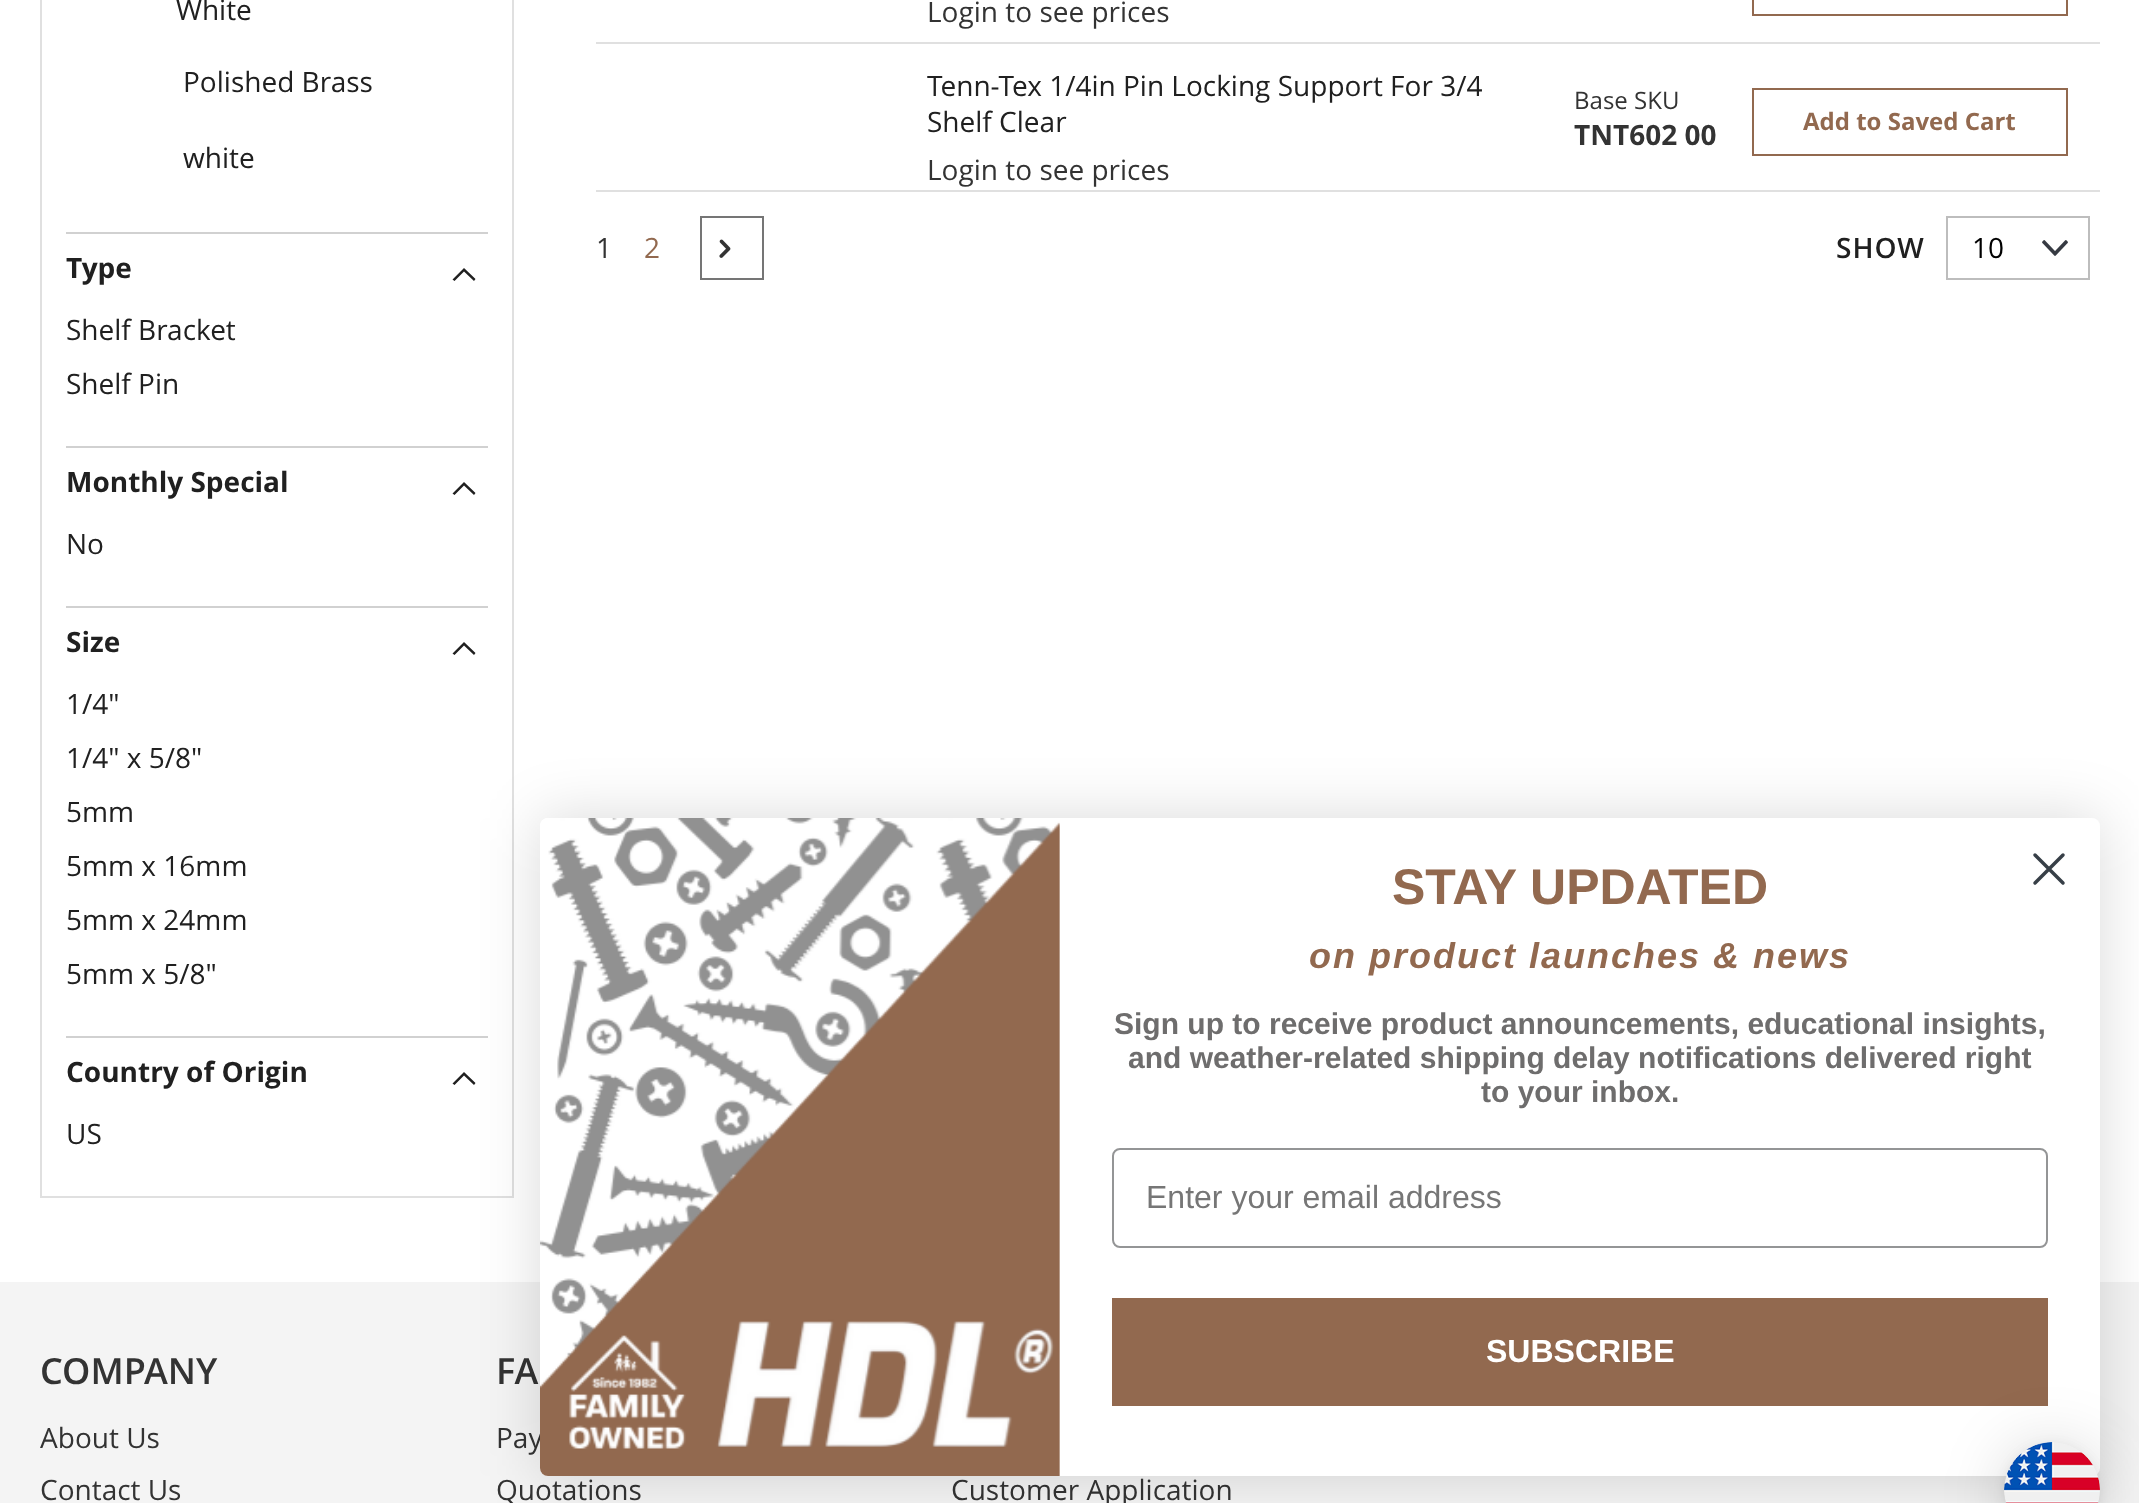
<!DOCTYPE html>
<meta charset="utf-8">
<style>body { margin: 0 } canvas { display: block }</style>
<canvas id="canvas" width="2139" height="1503"></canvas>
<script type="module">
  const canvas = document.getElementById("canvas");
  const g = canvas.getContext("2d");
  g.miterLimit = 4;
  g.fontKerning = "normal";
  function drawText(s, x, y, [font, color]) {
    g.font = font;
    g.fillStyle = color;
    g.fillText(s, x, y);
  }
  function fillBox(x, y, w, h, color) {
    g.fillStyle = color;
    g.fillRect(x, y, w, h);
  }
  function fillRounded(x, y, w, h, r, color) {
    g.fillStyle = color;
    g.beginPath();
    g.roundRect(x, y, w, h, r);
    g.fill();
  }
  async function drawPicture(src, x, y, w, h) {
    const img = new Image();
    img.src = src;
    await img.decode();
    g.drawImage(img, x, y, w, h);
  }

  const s1 = ["28px Open Sans", "#202020"];
  const s2 = ["bold 28px Open Sans", "#202020"];
  const s3 = ["28px Open Sans", "#333333"];
  const s4 = ["24px Open Sans", "#333333"];
  const s5 = ["bold 28px Open Sans", "#333333"];
  const s6 = ["bold 24px Open Sans", "#92694F"];
  const s7 = ["28px Open Sans", "#92694F"];
  const s8 = ["600 28px Open Sans", "#202020"];
  const s9 = ["28px Open Sans", "#000000"];
  const s10 = ["600 36px Open Sans", "#333333"];
  const s11 = ["bold 50px Liberation Sans", "#92694F"];
  const s12 = ["italic bold 36px Liberation Sans", "#92694F"];
  const s13 = ["bold 30px Liberation Sans", "#6E6D6D"];
  const s14 = ["32px Liberation Sans", "#767676"];
  const s15 = ["bold 32px Liberation Sans", "#FFFFFF"];

  fillBox(0, 0, 2139, 1503, "#FFFFFF");
  g.strokeStyle = "#E0E0E0";
  g.lineWidth = 2;
  g.strokeRect(41, -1, 472, 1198);
  fillBox(66, 232, 422, 2, "#D1D1D1");
  drawText("White", 176, 20, s1);
  drawText("Polished Brass", 183, 92, s1);
  drawText("white", 183, 168, s1);
  fillBox(66, 446, 422, 2, "#D1D1D1");
  drawText("Type", 66, 278, s2);
  g.beginPath();
  g.moveTo(464, 271.5);
  g.lineTo(474, 281);
  g.lineTo(475.5, 279);
  g.lineTo(464, 268);
  g.lineTo(452.5, 279.5);
  g.lineTo(454.5, 281);
  g.closePath();
  g.fill();
  drawText("Shelf Bracket", 66, 340, s1);
  drawText("Shelf Pin", 66, 394, s1);
  fillBox(66, 606, 422, 2, "#D1D1D1");
  drawText("Monthly Special", 66, 492, s2);
  g.beginPath();
  g.moveTo(464, 485.5);
  g.lineTo(474, 495);
  g.lineTo(475.5, 493);
  g.lineTo(464, 482);
  g.lineTo(452.5, 493.5);
  g.lineTo(454.5, 495);
  g.closePath();
  g.fill();
  drawText("No", 66, 554, s1);
  fillBox(66, 1036, 422, 2, "#D1D1D1");
  drawText("Size", 66, 652, s2);
  g.beginPath();
  g.moveTo(464, 645.5);
  g.lineTo(474, 655);
  g.lineTo(475.5, 653);
  g.lineTo(464, 642);
  g.lineTo(452.5, 653.5);
  g.lineTo(454.5, 655);
  g.closePath();
  g.fill();
  drawText("1/4\"", 66, 714, s1);
  drawText("1/4\" x 5/8\"", 66, 768, s1);
  drawText("5mm", 66, 822, s1);
  drawText("5mm x 16mm", 66, 876, s1);
  drawText("5mm x 24mm", 66, 930, s1);
  drawText("5mm x 5/8\"", 66, 984, s1);
  drawText("Country of Origin", 66, 1082, s2);
  g.beginPath();
  g.moveTo(464, 1075.5);
  g.lineTo(474, 1085);
  g.lineTo(475.5, 1083);
  g.lineTo(464, 1072);
  g.lineTo(452.5, 1083.5);
  g.lineTo(454.5, 1085);
  g.closePath();
  g.fill();
  drawText("US", 66, 1144, s1);
  fillBox(596, 42, 1504, 2, "#E0E0E0");
  drawText("Login to see prices", 927, 22, s3);
  g.strokeStyle = "#92694F";
  g.strokeRect(1753, -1, 314, 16);
  drawText("Tenn-Tex 1/4in Pin Locking Support For 3/4", 927, 96, s1);
  drawText("Shelf Clear", 927, 132, s1);
  drawText("Login to see prices", 927, 180, s3);
  drawText("Base SKU", 1574, 109, s4);
  drawText("TNT602 00", 1574, 145, s5);
  g.strokeRect(1753, 89, 314, 66);
  drawText("Add to Saved Cart", 1803, 130, s6);
  fillBox(596, 190, 1504, 2, "#E0E0E0");
  drawText("1", 596, 258, s3);
  drawText("2", 644, 258, s7);
  g.strokeStyle = "#757575";
  g.strokeRect(701, 217, 62, 62);
  await drawPicture("pic1.png", 719, 239, 12, 19);
  g.letterSpacing = "1px";
  drawText("SHOW", 1836, 258, s8);
  await drawPicture("pic2.png", 2042, 240, 26, 16);
  g.strokeStyle = "#BDBDBD";
  g.strokeRect(1947, 217, 142, 62);
  g.letterSpacing = "0px";
  drawText("10", 1972, 258, s9);
  fillBox(0, 1282, 2139, 221, "#F4F4F4");
  drawText("COMPANY", 40, 1384, s10);
  drawText("About Us", 40, 1448, s3);
  drawText("Contact Us", 40, 1500, s3);
  drawText("FA", 496, 1384, s10);
  drawText("Pay", 496, 1448, s3);
  drawText("Quotations", 496, 1500, s3);
  drawText("Customer Application", 951, 1500, s3);
  g.fillStyle = "rgba(0, 0, 0, 0.15)";
  g.filter = "blur(30px)";
  g.beginPath();
  g.roundRect(540, 818, 1560, 658, 8);
  g.fill();
  g.filter = "none";
  fillRounded(540, 818, 1560, 658, 8, "#FFFFFF");
  await drawPicture("pic3.png", 540, 818, 520, 658);
  drawText("STAY UPDATED", 1392, 904, s11);
  g.letterSpacing = "2px";
  drawText("on product launches & news", 1309, 968, s12);
  g.letterSpacing = "0px";
  drawText("Sign up to receive product announcements, educational insights,", 1114, 1034, s13);
  drawText("and weather-related shipping delay notifications delivered right", 1128, 1068, s13);
  drawText("to your inbox.", 1481, 1102, s13);
  g.beginPath();
  g.roundRect(1113, 1149, 934, 98, 7);
  g.strokeStyle = "#949596";
  g.stroke();
  drawText("Enter your email address", 1146, 1208, s14);
  fillBox(1112, 1298, 936, 108, "#92694F");
  drawText("SUBSCRIBE", 1486, 1362, s15);
  g.beginPath();
  g.moveTo(2035, 855);
  g.lineTo(2063, 883);
  g.moveTo(2035, 883);
  g.lineTo(2063, 855);
  g.closePath();
  g.strokeStyle = "#373F47";
  g.lineWidth = 3.5;
  g.lineCap = "round";
  g.lineJoin = "round";
  g.stroke();
  g.fillStyle = "rgba(0, 0, 0, 0.16)";
  g.filter = "blur(32px)";
  g.beginPath();
  g.roundRect(2004, 1446, 96, 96, 48);
  g.fill();
  g.filter = "none";
  g.fillStyle = "rgba(0, 0, 0, 0.06)";
  g.filter = "blur(6px)";
  g.beginPath();
  g.roundRect(2004, 1444, 96, 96, 48);
  g.fill();
  g.filter = "none";
  await drawPicture("pic4.png", 2004, 1442, 96, 61);
</script>
